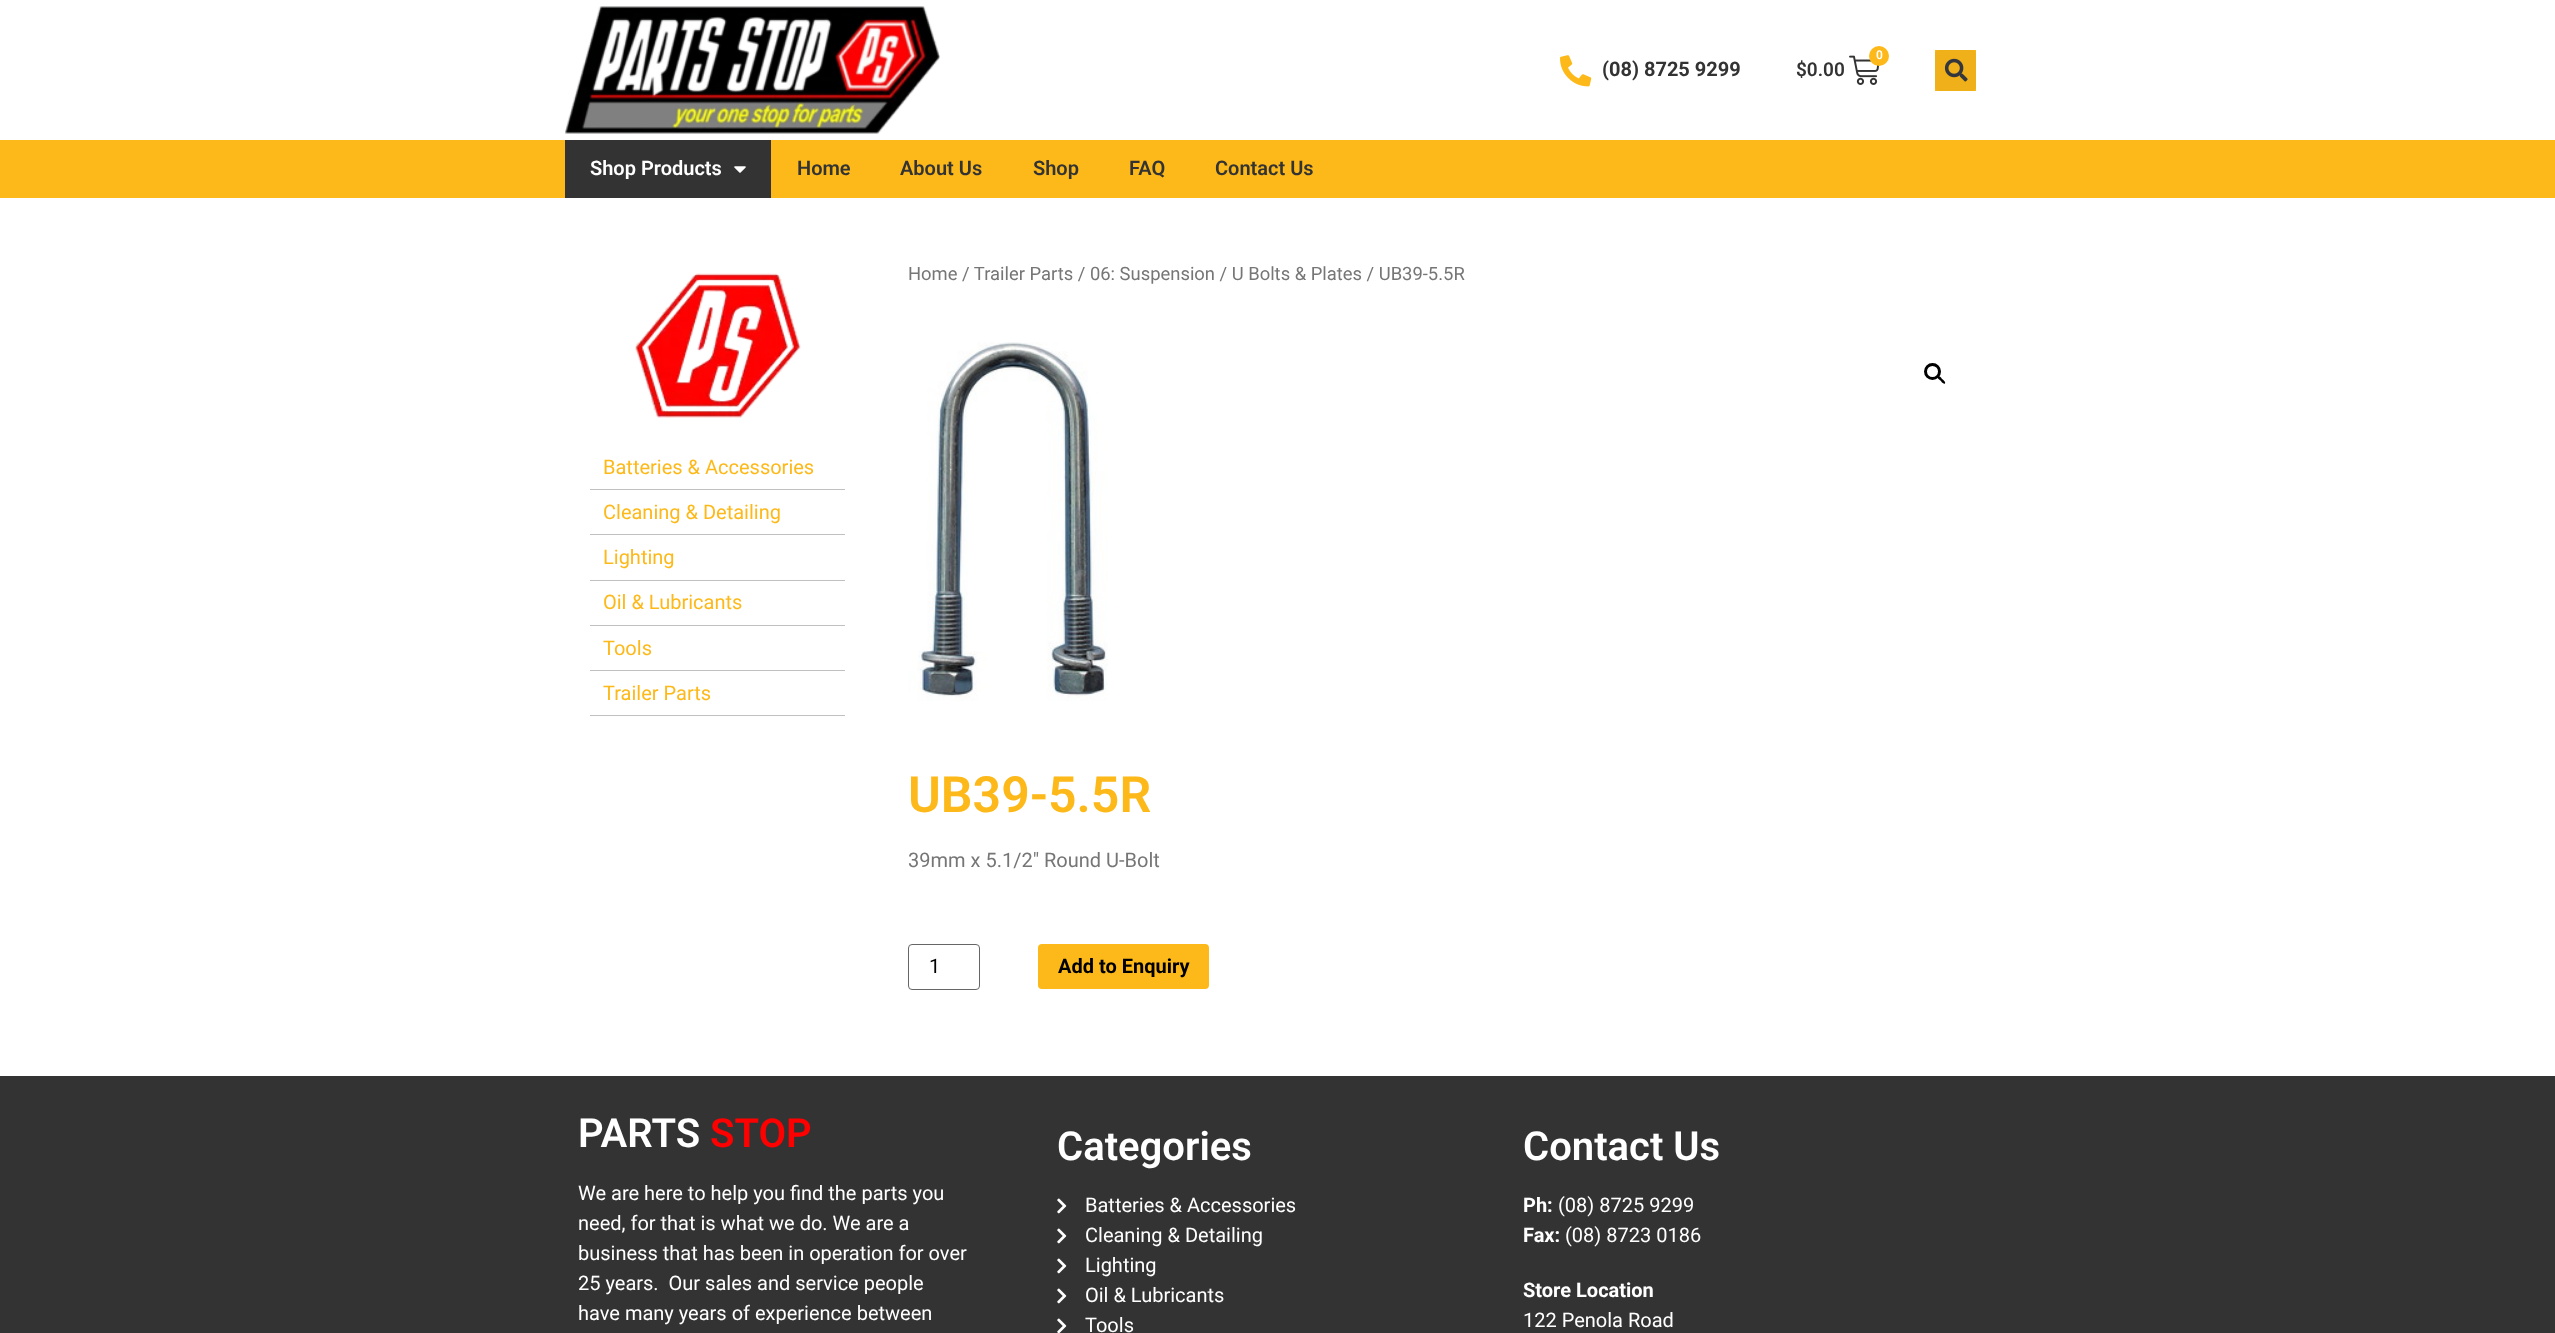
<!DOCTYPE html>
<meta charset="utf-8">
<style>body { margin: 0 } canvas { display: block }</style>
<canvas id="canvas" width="2555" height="1333"></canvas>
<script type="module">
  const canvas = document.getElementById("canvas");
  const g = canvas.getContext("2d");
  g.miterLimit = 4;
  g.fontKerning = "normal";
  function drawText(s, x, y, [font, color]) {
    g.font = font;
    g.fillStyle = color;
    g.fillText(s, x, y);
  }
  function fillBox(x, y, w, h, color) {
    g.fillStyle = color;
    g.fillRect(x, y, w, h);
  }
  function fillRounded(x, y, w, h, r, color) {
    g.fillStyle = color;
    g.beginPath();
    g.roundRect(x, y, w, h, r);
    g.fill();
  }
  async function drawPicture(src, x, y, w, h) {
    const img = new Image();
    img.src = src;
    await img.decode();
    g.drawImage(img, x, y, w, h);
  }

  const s1 = ["bold 20px Roboto", "#333333"];
  const s2 = ["600 12px Roboto", "#FFFFFF"];
  const s3 = ["600 19px Roboto", "#333333"];
  const s4 = ["600 20px Roboto", "#FFFFFF"];
  const s5 = ["600 20px Roboto", "#333333"];
  const s6 = ["20px Roboto", "#FDB91A"];
  const s7 = ["18.4px Roboto", "#767676"];
  const s8 = ["600 50px Roboto", "#FDB91A"];
  const s9 = ["20px Roboto", "#767676"];
  const s10 = ["20px Roboto", "#000000"];
  const s11 = ["bold 20px Roboto", "#000000"];
  const s12 = ["600 40px Roboto", "#FFFFFF"];
  const s13 = ["600 40px Roboto", "#FF0000"];
  const s14 = ["20px Roboto", "#FFFFFF"];
  const s15 = ["bold 20px Roboto", "#FFFFFF"];

  fillBox(0, 0, 2555, 1333, "#FFFFFF");
  await drawPicture("pic1.png", 565, 6, 375, 128);
  await drawPicture("pic2.png", 1560, 55, 32, 32);
  drawText("(08) 8725 9299", 1602, 76, s1);
  await drawPicture("pic3.png", 1849, 55, 31, 30);
  g.fillStyle = "#FDB91A";
  g.beginPath();
  g.arc(1879, 56, 10, 0, Math.PI * 2);
  g.fill();
  drawText("0", 1876, 59, s2);
  drawText("$0.00", 1796, 76, s3);
  fillBox(1935, 50, 41, 41, "#FDB91A");
  fillRounded(1935, 50, 41, 41, 4, "#F0B019");
  await drawPicture("pic4.png", 1944, 58, 24, 24);
  fillBox(0, 140, 2555, 58, "#FDB91A");
  fillBox(565, 140, 206, 58, "#333333");
  drawText("Shop Products", 590, 175, s4);
  await drawPicture("pic5.png", 734, 166, 12, 7);
  drawText("Home", 797, 175, s5);
  drawText("About Us", 900, 175, s5);
  drawText("Shop", 1033, 175, s5);
  drawText("FAQ", 1129, 175, s5);
  drawText("Contact Us", 1215, 175, s5);
  await drawPicture("pic6.png", 635, 273, 166, 145);
  fillBox(590, 489, 255, 1, "#C0C0C0");
  drawText("Batteries & Accessories", 603, 474, s6);
  fillBox(590, 534, 255, 1, "#C0C0C0");
  drawText("Cleaning & Detailing", 603, 519, s6);
  fillBox(590, 580, 255, 1, "#C0C0C0");
  drawText("Lighting", 603, 564, s6);
  fillBox(590, 625, 255, 1, "#C0C0C0");
  drawText("Oil & Lubricants", 603, 609, s6);
  fillBox(590, 670, 255, 1, "#C0C0C0");
  drawText("Tools", 603, 655, s6);
  fillBox(590, 715, 255, 1, "#C0C0C0");
  drawText("Trailer Parts", 603, 700, s6);
  drawText("Home / Trailer Parts / 06: Suspension / U Bolts & Plates / UB39-5.5R", 908, 280, s7);
  await drawPicture("pic7.png", 908, 342, 200, 359);
  g.beginPath();
  g.arc(1932.5, 371.5, 7, 0, Math.PI * 2);
  g.strokeStyle = "#000000";
  g.lineWidth = 3;
  g.stroke();
  g.fillStyle = "#000000";
  g.beginPath();
  g.moveTo(1937.5, 376);
  g.bezierCurveTo(1939, 375, 1941.5, 378, 1942, 379);
  g.bezierCurveTo(1943, 379.5, 1946, 382, 1945, 383.5);
  g.bezierCurveTo(1943.5, 384.5, 1941, 381.5, 1940.5, 380.5);
  g.bezierCurveTo(1939.5, 380, 1936.5, 377.5, 1937.5, 376);
  g.closePath();
  g.fill();
  drawText("UB39-5.5R", 908, 812, s8);
  drawText("39mm x 5.1/2″ Round U-Bolt", 908, 867, s9);
  g.beginPath();
  g.roundRect(908.5, 944.5, 71, 45, 3.5);
  g.strokeStyle = "#666666";
  g.lineWidth = 1;
  g.stroke();
  drawText("1", 929, 973, s10);
  fillRounded(1038, 944, 171, 45, 4, "#FDB91A");
  drawText("Add to Enquiry", 1058, 973, s11);
  fillBox(0, 1076, 2555, 257, "#333333");
  drawText("PARTS", 578, 1147, s12);
  drawText("STOP", 710, 1147, s13);
  drawText("We are here to help you find the parts you", 578, 1200, s14);
  drawText("need, for that is what we do. We are a", 578, 1230, s14);
  drawText("business that has been in operation for over", 578, 1260, s14);
  drawText("25 years.  Our sales and service people", 578, 1290, s14);
  drawText("have many years of experience between", 578, 1320, s14);
  drawText("Categories", 1057, 1160, s12);
  await drawPicture("pic8.png", 1057, 1198, 10, 16);
  drawText("Batteries & Accessories", 1085, 1212, s14);
  await drawPicture("pic8.png", 1057, 1228, 10, 16);
  drawText("Cleaning & Detailing", 1085, 1242, s14);
  await drawPicture("pic8.png", 1057, 1258, 10, 16);
  drawText("Lighting", 1085, 1272, s14);
  await drawPicture("pic8.png", 1057, 1288, 10, 16);
  drawText("Oil & Lubricants", 1085, 1302, s14);
  await drawPicture("pic9.png", 1057, 1318, 10, 15);
  drawText("Tools", 1085, 1332, s14);
  drawText("Contact Us", 1523, 1160, s12);
  drawText("Ph:", 1523, 1212, s15);
  drawText("(08) 8725 9299", 1558, 1212, s14);
  drawText("Fax:", 1523, 1242, s15);
  drawText("(08) 8723 0186", 1565, 1242, s14);
  drawText("Store Location", 1523, 1297, s15);
  drawText("122 Penola Road", 1523, 1327, s14);
</script>
